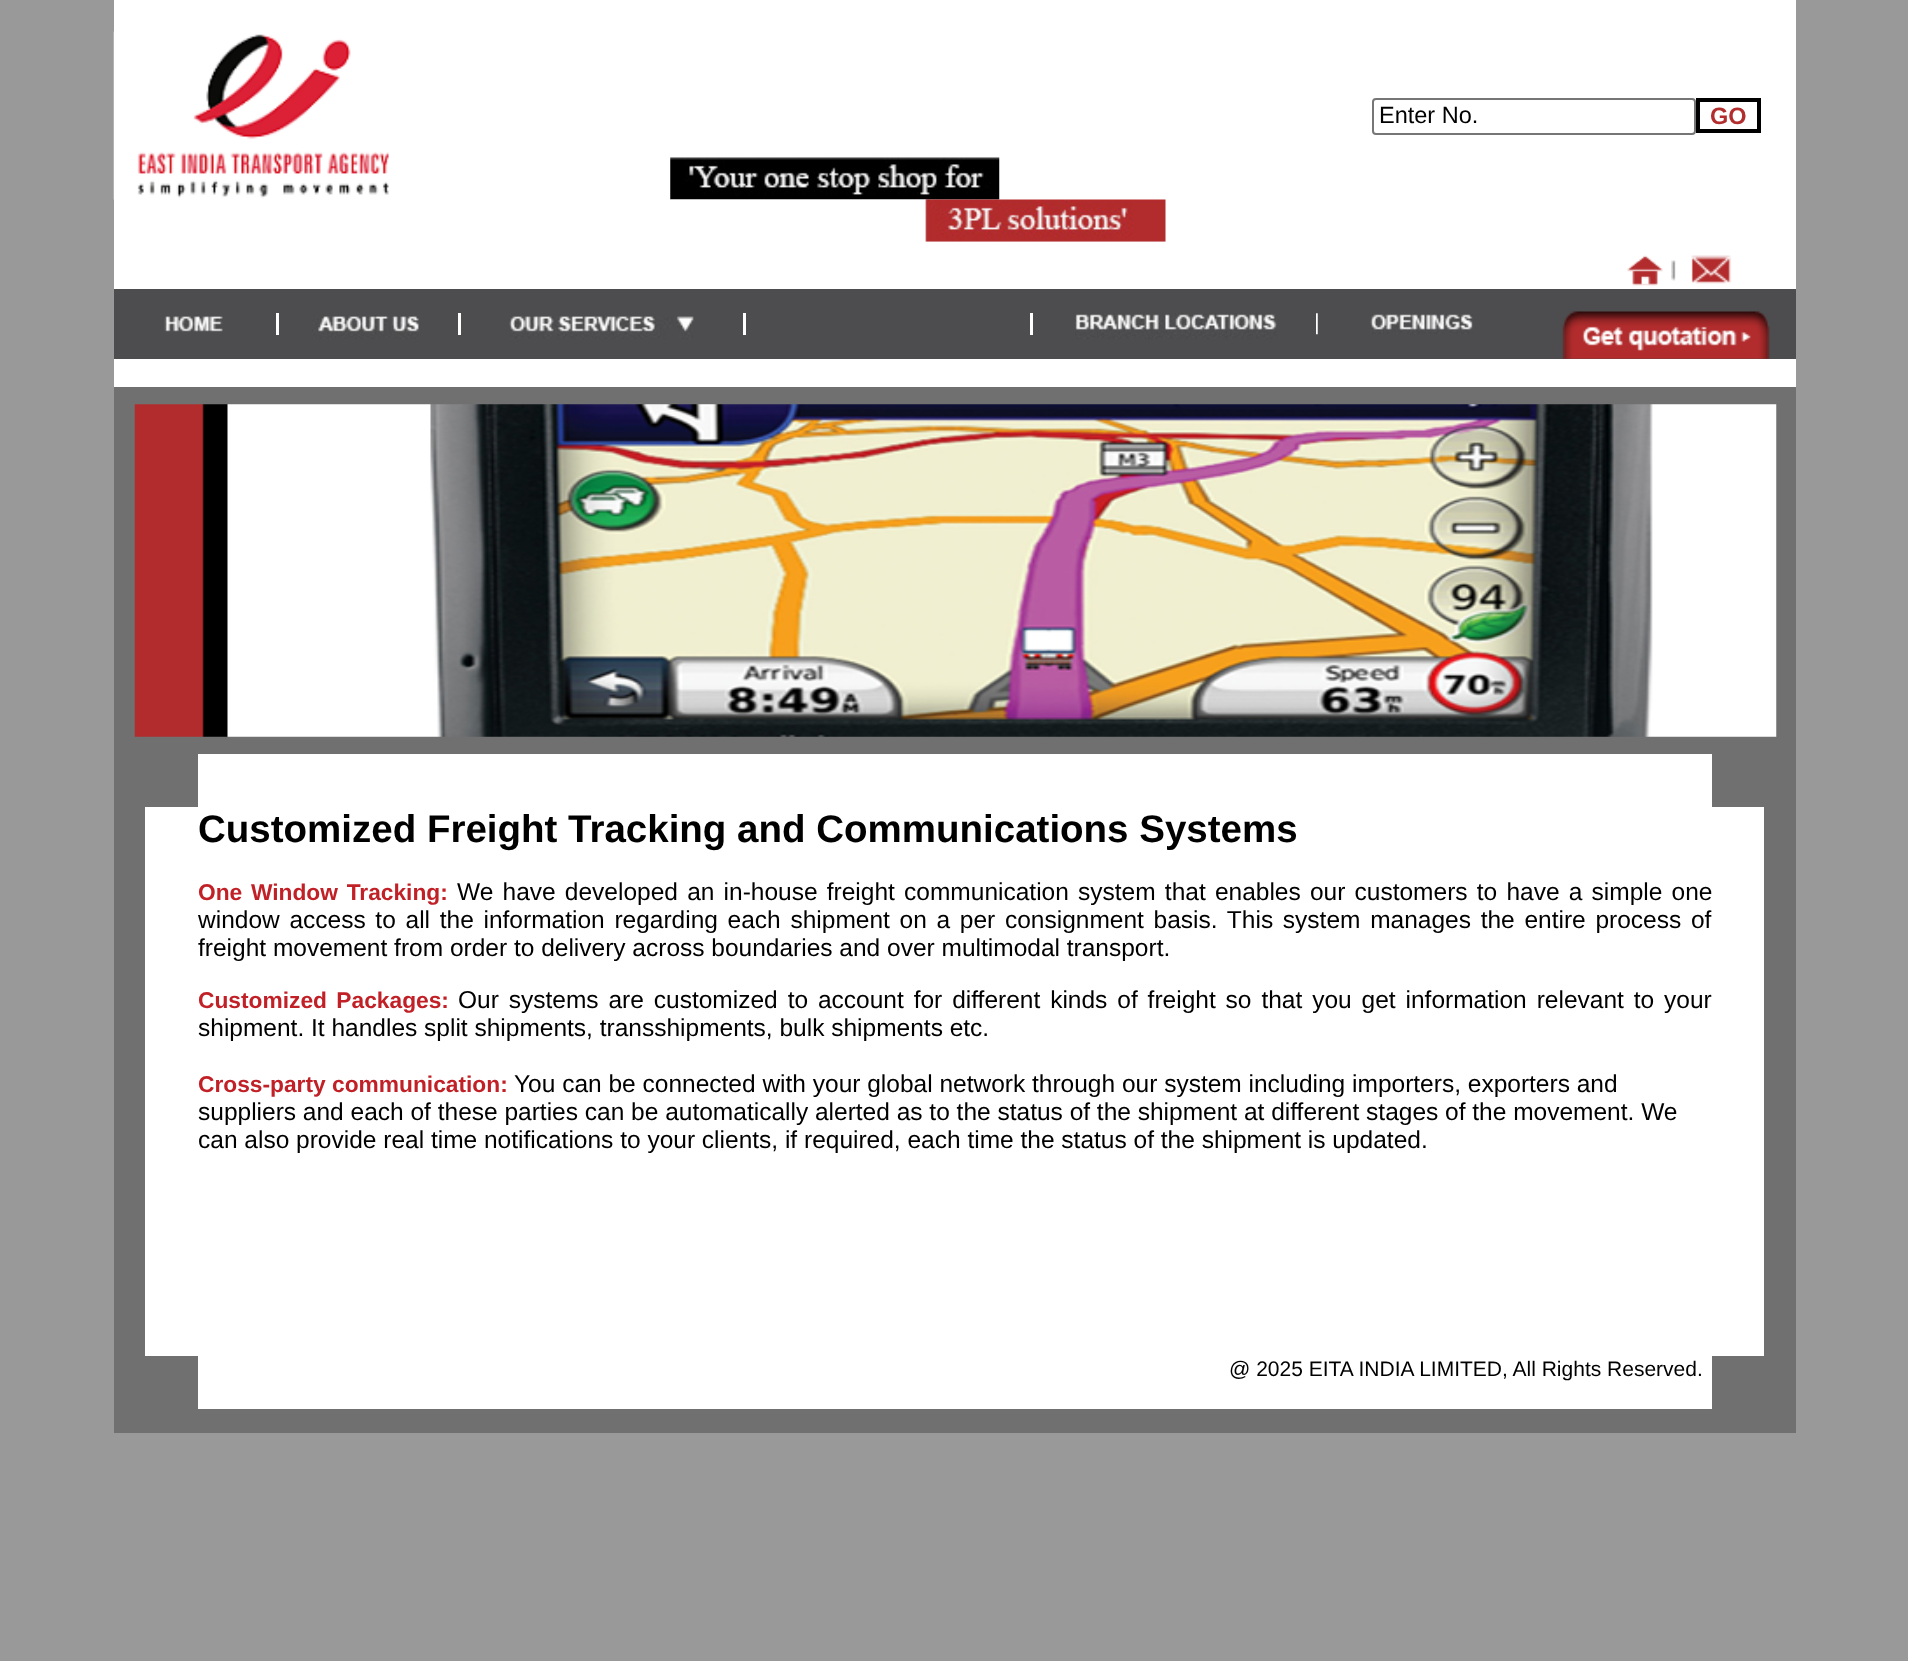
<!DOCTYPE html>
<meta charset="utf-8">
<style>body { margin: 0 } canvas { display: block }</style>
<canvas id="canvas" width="1908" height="1661"></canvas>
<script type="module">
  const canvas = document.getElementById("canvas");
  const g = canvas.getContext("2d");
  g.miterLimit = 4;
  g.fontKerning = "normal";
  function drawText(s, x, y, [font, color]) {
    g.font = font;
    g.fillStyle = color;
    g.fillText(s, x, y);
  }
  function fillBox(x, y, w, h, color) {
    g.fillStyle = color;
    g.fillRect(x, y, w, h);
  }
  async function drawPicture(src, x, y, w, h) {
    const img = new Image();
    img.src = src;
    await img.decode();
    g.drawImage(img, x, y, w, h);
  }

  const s1 = ["23.5px Liberation Sans", "#000000"];
  const s2 = ["bold 23.5px Liberation Sans", "#B22D2E"];
  const s3 = ["bold 38.5px Liberation Sans", "#000000"];
  const s4 = ["bold 22.75px Liberation Sans", "#C12026"];
  const s5 = ["24.5px Liberation Sans", "#000000"];
  const s6 = ["21px Liberation Sans", "#000000"];

  fillBox(0, 0, 1908, 1661, "#999999");
  fillBox(114, 0, 1682, 387, "#FFFFFF");
  await drawPicture("pic1.png", 113, 31, 276, 169);
  g.beginPath();
  g.roundRect(1373, 99, 322, 35, 3);
  g.strokeStyle = "#767676";
  g.lineWidth = 2;
  g.stroke();
  drawText("Enter No.", 1379, 123, s1);
  g.strokeStyle = "#000000";
  g.lineWidth = 4;
  g.strokeRect(1698, 100, 61, 31);
  drawText("GO", 1710, 124, s2);
  await drawPicture("pic2.png", 670, 157, 330, 43);
  await drawPicture("pic3.png", 670, 199, 496, 43);
  await drawPicture("pic4.png", 1627, 255, 36, 31);
  await drawPicture("pic5.png", 1671, 260, 5, 21);
  await drawPicture("pic6.png", 1691, 255, 41, 29);
  fillBox(114, 289, 1682, 70, "#4D4D4F");
  await drawPicture("pic7.png", 164, 316, 59, 16);
  fillBox(276, 313, 3, 22, "#FFFFFF");
  await drawPicture("pic8.png", 312, 315, 107, 24);
  fillBox(458, 313, 3, 22, "#FFFFFF");
  await drawPicture("pic9.png", 509, 316, 185, 23);
  fillBox(743, 313, 3, 22, "#FFFFFF");
  fillBox(1030, 313, 3, 22, "#FFFFFF");
  await drawPicture("pic10.png", 1075, 313, 202, 26);
  await drawPicture("pic11.png", 1316, 313, 2, 22);
  await drawPicture("pic12.png", 1370, 314, 103, 20);
  await drawPicture("pic13.png", 1562, 311, 208, 48);
  fillBox(114, 387, 1682, 1046, "#707070");
  await drawPicture("pic14.png", 134, 404, 1643, 333);
  fillBox(145, 754, 1619, 655, "#FFFFFF");
  fillBox(145, 754, 53, 53, "#707070");
  fillBox(1712, 754, 52, 53, "#707070");
  drawText("Customized Freight Tracking and Communications Systems", 198, 842, s3);
  g.wordSpacing = "2.4px";
  drawText("One Window Tracking:", 198, 900, s4);
  drawText("We have developed an in-house freight communication system that enables our customers to have a simple one", 457, 900, s5);
  g.wordSpacing = "2.9px";
  drawText("window access to all the information regarding each shipment on a per consignment basis. This system manages the entire process of", 198, 928, s5);
  g.wordSpacing = "0px";
  drawText("freight movement from order to delivery across boundaries and over multimodal transport.", 198, 956, s5);
  g.wordSpacing = "3.1px";
  drawText("Customized Packages:", 198, 1008, s4);
  drawText("Our systems are customized to account for different kinds of freight so that you get information relevant to your", 458, 1008, s5);
  g.wordSpacing = "0px";
  drawText("shipment. It handles split shipments, transshipments, bulk shipments etc.", 198, 1036, s5);
  drawText("Cross-party communication:", 198, 1092, s4);
  drawText("You can be connected with your global network through our system including importers, exporters and", 514, 1092, s5);
  drawText("suppliers and each of these parties can be automatically alerted as to the status of the shipment at different stages of the movement. We", 198, 1120, s5);
  drawText("can also provide real time notifications to your clients, if required, each time the status of the shipment is updated.", 198, 1148, s5);
  fillBox(145, 1356, 53, 53, "#707070");
  drawText("@ 2025 EITA INDIA LIMITED, All Rights Reserved.", 1229, 1376, s6);
  fillBox(1712, 1356, 52, 53, "#707070");
</script>
